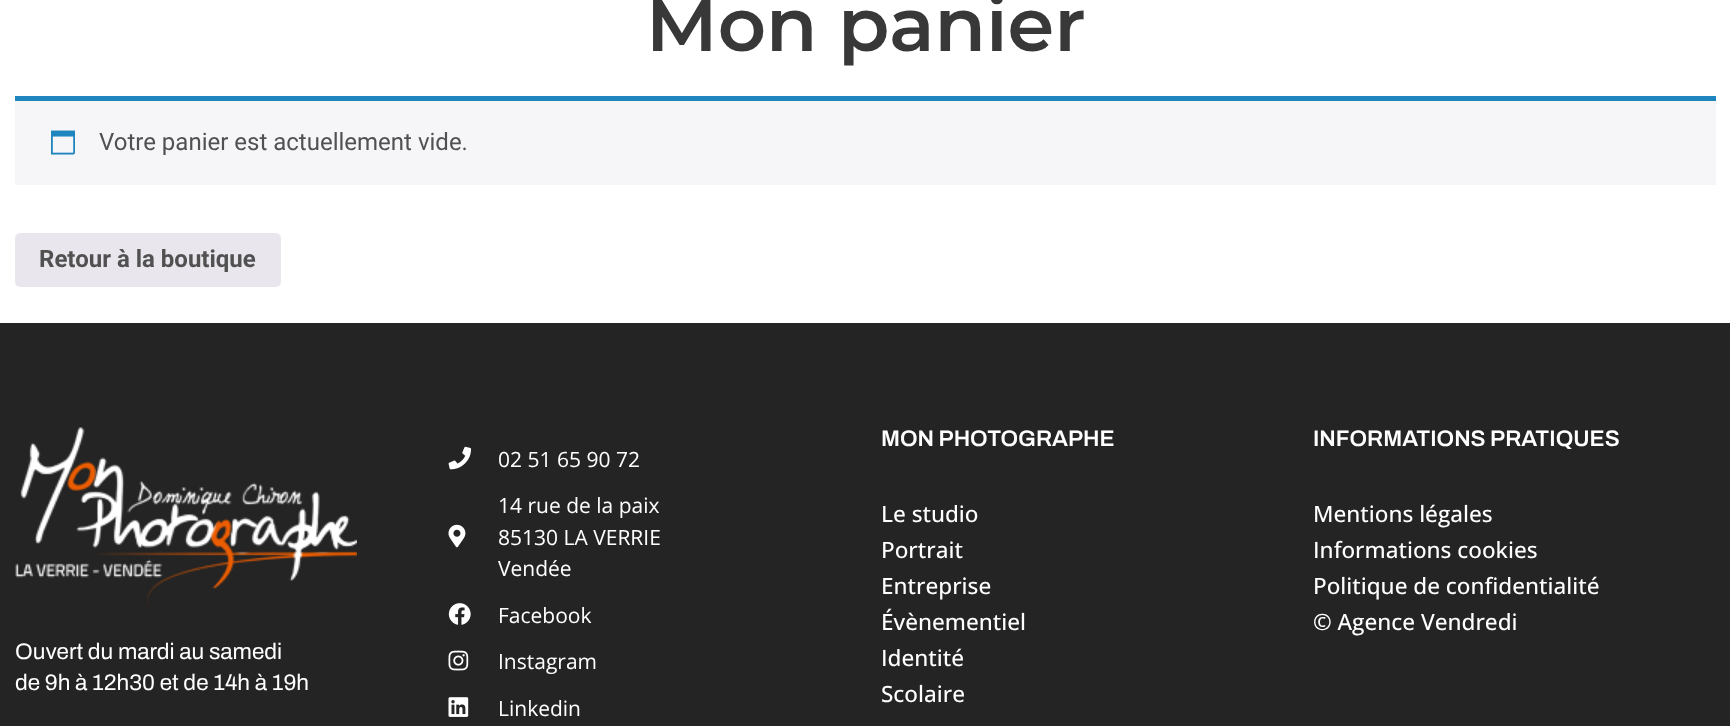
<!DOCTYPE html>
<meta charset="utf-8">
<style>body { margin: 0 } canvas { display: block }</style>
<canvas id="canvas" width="1730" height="726"></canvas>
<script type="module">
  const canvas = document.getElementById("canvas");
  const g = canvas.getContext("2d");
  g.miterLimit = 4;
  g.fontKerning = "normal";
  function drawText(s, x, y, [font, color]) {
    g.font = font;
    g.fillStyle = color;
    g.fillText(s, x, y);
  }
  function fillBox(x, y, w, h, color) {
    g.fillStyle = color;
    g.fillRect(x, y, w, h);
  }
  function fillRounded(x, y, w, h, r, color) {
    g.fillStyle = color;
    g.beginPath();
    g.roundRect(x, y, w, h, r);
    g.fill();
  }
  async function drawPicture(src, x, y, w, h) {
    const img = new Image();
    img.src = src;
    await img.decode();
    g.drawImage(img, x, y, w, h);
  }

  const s1 = ["600 75px Montserrat", "#383838"];
  const s2 = ["24px Roboto", "#515151"];
  const s3 = ["bold 24px Roboto", "#515151"];
  const s4 = ["22.5px Archivo", "#FFFFFF"];
  const s5 = ["21px Open Sans", "#FFFFFF"];
  const s6 = ["600 22.5px Archivo", "#FFFFFF"];
  const s7 = ["500 22.5px Open Sans", "#FFFFFF"];

  fillBox(0, 0, 1730, 726, "#FFFFFF");
  drawText("Mon panier", 646, 51, s1);
  fillBox(15, 101, 1701, 84, "#F6F5F8");
  fillBox(15, 96, 1701, 5, "#1E85BE");
  await drawPicture("pic1.png", 51, 130, 24, 25);
  drawText("Votre panier est actuellement vide.", 99, 150, s2);
  fillRounded(15, 233, 266, 54, 5, "#E9E6ED");
  drawText("Retour à la boutique", 39, 267, s3);
  fillBox(0, 323, 1730, 403, "#242424");
  await drawPicture("pic2.png", 15, 427, 342, 179);
  drawText("Ouvert du mardi au samedi", 15, 659, s4);
  drawText("de 9h à 12h30 et de 14h à 19h", 15, 690, s4);
  await drawPicture("pic3.png", 448, 446, 23, 24);
  drawText("02 51 65 90 72", 498, 467, s5);
  await drawPicture("pic4.png", 448, 524, 18, 24);
  drawText("14 rue de la paix", 498, 513, s5);
  drawText("85130 LA VERRIE", 498, 545, s5);
  drawText("Vendée", 498, 576, s5);
  await drawPicture("pic5.png", 448, 603, 23, 22);
  drawText("Facebook", 498, 623, s5);
  await drawPicture("pic6.png", 448, 650, 21, 21);
  drawText("Instagram", 498, 669, s5);
  await drawPicture("pic7.png", 448, 697, 21, 20);
  drawText("Linkedin", 498, 716, s5);
  drawText("MON PHOTOGRAPHE", 881, 446, s6);
  drawText("Le studio", 881, 522, s7);
  drawText("Portrait", 881, 558, s7);
  drawText("Entreprise", 881, 594, s7);
  drawText("Évènementiel", 881, 630, s7);
  drawText("Identité", 881, 666, s7);
  drawText("Scolaire", 881, 702, s7);
  drawText("INFORMATIONS PRATIQUES", 1313, 446, s6);
  drawText("Mentions légales", 1313, 522, s7);
  drawText("Informations cookies", 1313, 558, s7);
  drawText("Politique de confidentialité", 1313, 594, s7);
  drawText("© Agence Vendredi", 1313, 630, s7);
</script>
